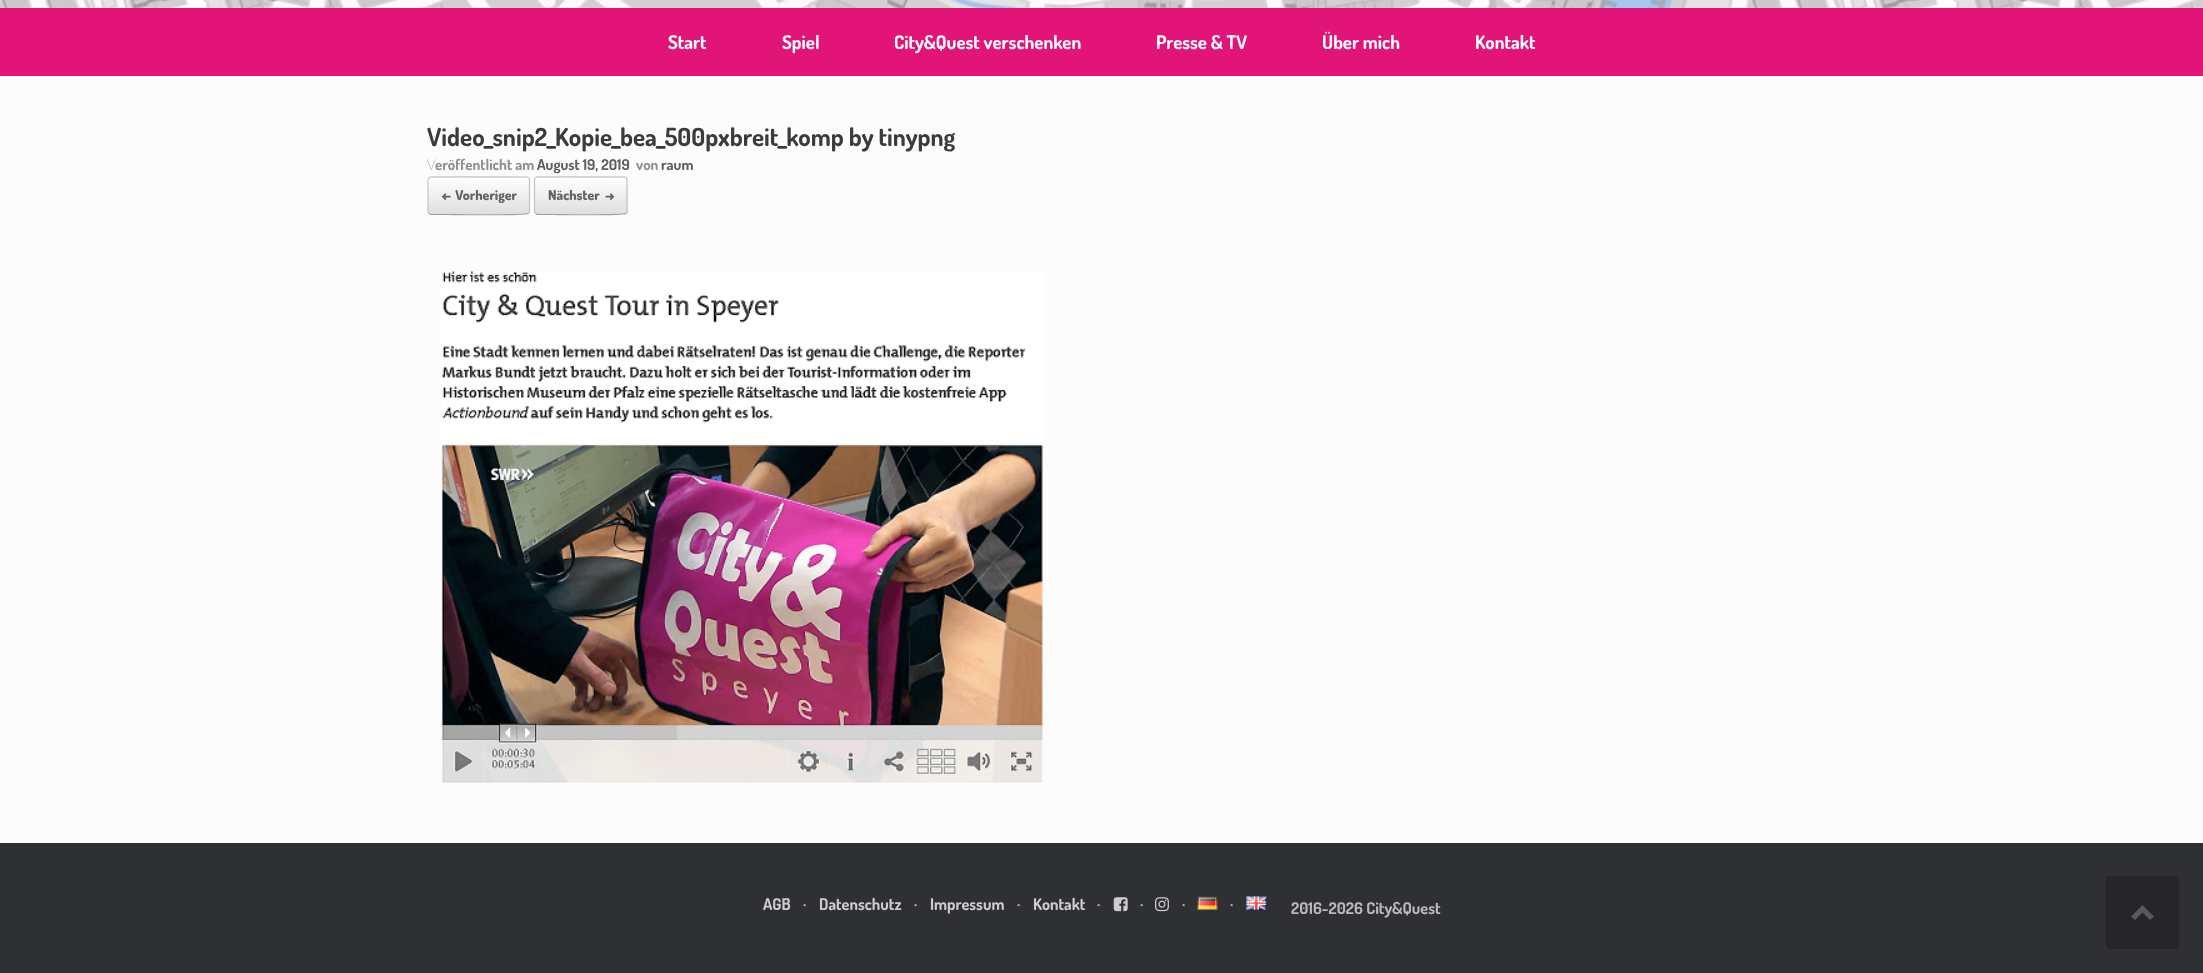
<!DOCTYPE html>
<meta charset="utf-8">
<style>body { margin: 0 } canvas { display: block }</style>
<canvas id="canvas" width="2203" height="973"></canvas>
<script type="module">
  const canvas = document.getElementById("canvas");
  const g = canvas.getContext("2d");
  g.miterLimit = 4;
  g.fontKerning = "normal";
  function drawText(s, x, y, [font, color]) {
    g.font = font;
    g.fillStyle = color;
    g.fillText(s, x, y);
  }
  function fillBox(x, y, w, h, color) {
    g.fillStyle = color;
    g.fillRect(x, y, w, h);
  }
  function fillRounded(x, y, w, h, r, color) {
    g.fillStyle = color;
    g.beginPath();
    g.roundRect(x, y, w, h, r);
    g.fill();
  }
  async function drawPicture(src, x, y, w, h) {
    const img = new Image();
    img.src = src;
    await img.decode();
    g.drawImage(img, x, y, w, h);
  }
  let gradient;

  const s1 = ["bold 18.75px Dosis", "#FFFFFF"];
  const s2 = ["bold 25px Dosis", "#3B3B3B"];
  const s3 = ["100 15px Noto Sans", "#8F8F8F"];
  const s4 = ["bold 15px Dosis", "#8F8F8F"];
  const s5 = ["bold 15px Dosis", "#5E5E5E"];
  const s6 = ["800 13.75px Dosis", "#646464"];
  const s7 = ["bold 16.25px Dosis", "#CCCCCC"];
  const s8 = ["bold 16.25px Dosis", "#B9B9B9"];

  fillBox(0, 0, 2203, 973, "#2F3033");
  await drawPicture("pic1.png", 0, 0, 2203, 8);
  fillBox(0, 8, 2203, 68, "#E21478");
  drawText("Start", 668, 49, s1);
  drawText("Spiel", 782, 49, s1);
  drawText("City&Quest verschenken", 894, 49, s1);
  drawText("Presse & TV", 1156, 49, s1);
  drawText("Über mich", 1322, 49, s1);
  drawText("Kontakt", 1475, 49, s1);
  fillBox(0, 76, 2203, 767, "#FCFCFC");
  drawText("Video_snip2_Kopie_bea_500pxbreit_komp by tinypng", 427, 146, s2);
  drawText("V", 427, 170, s3);
  drawText("eröffentlicht am", 435, 170, s4);
  drawText("August 19, 2019", 537, 170, s5);
  drawText("von", 636, 170, s4);
  drawText("raum", 661, 170, s5);
  g.save();
  g.beginPath();
  g.roundRect(428, 176, 102, 39, 4);
  g.clip();
  gradient = g.createLinearGradient(429, 178, 429, 141);
  gradient.addColorStop(0, "#DFDFDF");
  gradient.addColorStop(1, "#FFFFFF");
  g.fillStyle = gradient;
  g.fillRect(428, 176, 102, 2);
  gradient = g.createLinearGradient(429, 214, 429, 178);
  gradient.addColorStop(0, "#DFDFDF");
  gradient.addColorStop(1, "#FFFFFF");
  g.fillStyle = gradient;
  g.fillRect(428, 178, 102, 36);
  gradient = g.createLinearGradient(429, 250, 429, 214);
  gradient.addColorStop(0, "#DFDFDF");
  gradient.addColorStop(1, "#FFFFFF");
  g.fillStyle = gradient;
  g.fillRect(428, 214, 102, 1);
  g.restore();
  g.beginPath();
  g.moveTo(429, 178);
  g.lineTo(429.5, 177.5);
  g.bezierCurveTo(431.5, 176, 502, 177, 510.5, 177);
  g.lineTo(526, 177);
  g.lineTo(528.5, 178);
  g.strokeStyle = "#D2D2D2";
  g.lineWidth = 1.2;
  g.stroke();
  g.beginPath();
  g.moveTo(528.5, 178);
  g.bezierCurveTo(529, 178.5, 529.5, 179, 529.5, 180);
  g.lineTo(529.5, 211);
  g.bezierCurveTo(529.5, 212, 529, 213, 528.5, 213.5);
  g.strokeStyle = "#C3C3C3";
  g.stroke();
  g.beginPath();
  g.moveTo(528.5, 213.5);
  g.lineTo(528, 213.5);
  g.bezierCurveTo(526, 215.5, 455.5, 214.5, 447, 214.5);
  g.lineTo(431, 214.5);
  g.lineTo(429, 213.5);
  g.strokeStyle = "#9F9F9F";
  g.stroke();
  g.beginPath();
  g.moveTo(429, 213.5);
  g.bezierCurveTo(428.5, 213, 428, 212, 428, 211);
  g.lineTo(428, 180);
  g.bezierCurveTo(428, 179, 428.5, 178.5, 429, 178);
  g.strokeStyle = "#C3C3C3";
  g.stroke();
  g.wordSpacing = "1px";
  drawText("← Vorheriger", 441, 200, s6);
  g.save();
  g.beginPath();
  g.roundRect(534, 176, 94, 39, 4);
  g.clip();
  gradient = g.createLinearGradient(535, 178, 535, 141);
  gradient.addColorStop(0, "#DFDFDF");
  gradient.addColorStop(1, "#FFFFFF");
  g.fillStyle = gradient;
  g.fillRect(534, 176, 94, 2);
  gradient = g.createLinearGradient(535, 214, 535, 178);
  gradient.addColorStop(0, "#DFDFDF");
  gradient.addColorStop(1, "#FFFFFF");
  g.fillStyle = gradient;
  g.fillRect(534, 178, 94, 36);
  gradient = g.createLinearGradient(535, 250, 535, 214);
  gradient.addColorStop(0, "#DFDFDF");
  gradient.addColorStop(1, "#FFFFFF");
  g.fillStyle = gradient;
  g.fillRect(534, 214, 94, 1);
  g.restore();
  g.beginPath();
  g.moveTo(535.5, 178);
  g.lineTo(535.5, 177.5);
  g.bezierCurveTo(537.5, 176, 601.5, 177, 609.5, 177);
  g.lineTo(624, 177);
  g.lineTo(626, 178);
  g.strokeStyle = "#D2D2D2";
  g.stroke();
  g.beginPath();
  g.moveTo(626, 178);
  g.bezierCurveTo(626.5, 178.5, 627, 179, 627, 180);
  g.lineTo(627, 211);
  g.bezierCurveTo(627, 212, 626.5, 213, 626, 213.5);
  g.strokeStyle = "#C3C3C3";
  g.stroke();
  g.beginPath();
  g.moveTo(626, 213.5);
  g.lineTo(625.5, 213.5);
  g.bezierCurveTo(623.5, 215.5, 560, 214.5, 552, 214.5);
  g.lineTo(537.5, 214.5);
  g.lineTo(535.5, 213.5);
  g.strokeStyle = "#9F9F9F";
  g.stroke();
  g.beginPath();
  g.moveTo(535.5, 213.5);
  g.bezierCurveTo(534.5, 213, 534.5, 212, 534.5, 211);
  g.lineTo(534.5, 180);
  g.bezierCurveTo(534.5, 179, 534.5, 178.5, 535.5, 178);
  g.strokeStyle = "#C3C3C3";
  g.stroke();
  g.wordSpacing = "2px";
  drawText("Nächster →", 548, 200, s6);
  await drawPicture("pic2.png", 441, 271, 602, 512);
  g.wordSpacing = "0px";
  drawText("AGB", 763, 910, s7);
  drawText("·", 803, 910, s8);
  drawText("Datenschutz", 819, 910, s7);
  drawText("·", 914, 910, s8);
  drawText("Impressum", 930, 910, s7);
  drawText("·", 1017, 910, s8);
  drawText("Kontakt", 1033, 910, s7);
  drawText("·", 1097, 910, s8);
  await drawPicture("pic3.png", 1113, 897, 15, 15);
  drawText("·", 1140, 910, s8);
  await drawPicture("pic4.png", 1155, 897, 14, 15);
  drawText("·", 1182, 910, s8);
  await drawPicture("pic5.png", 1197, 896, 21, 14);
  drawText("·", 1230, 910, s8);
  await drawPicture("pic6.png", 1246, 896, 21, 14);
  drawText("2016-2026 City&Quest", 1291, 914, s8);
  fillRounded(2106, 876, 73, 73, 4, "#262629");
  g.fillStyle = "#59595C";
  g.beginPath();
  g.moveTo(2154, 916.5);
  g.lineTo(2142.5, 905);
  g.lineTo(2131, 916.5);
  g.lineTo(2135, 920);
  g.lineTo(2142.5, 912.5);
  g.lineTo(2150, 920);
  g.closePath();
  g.fill();
</script>
